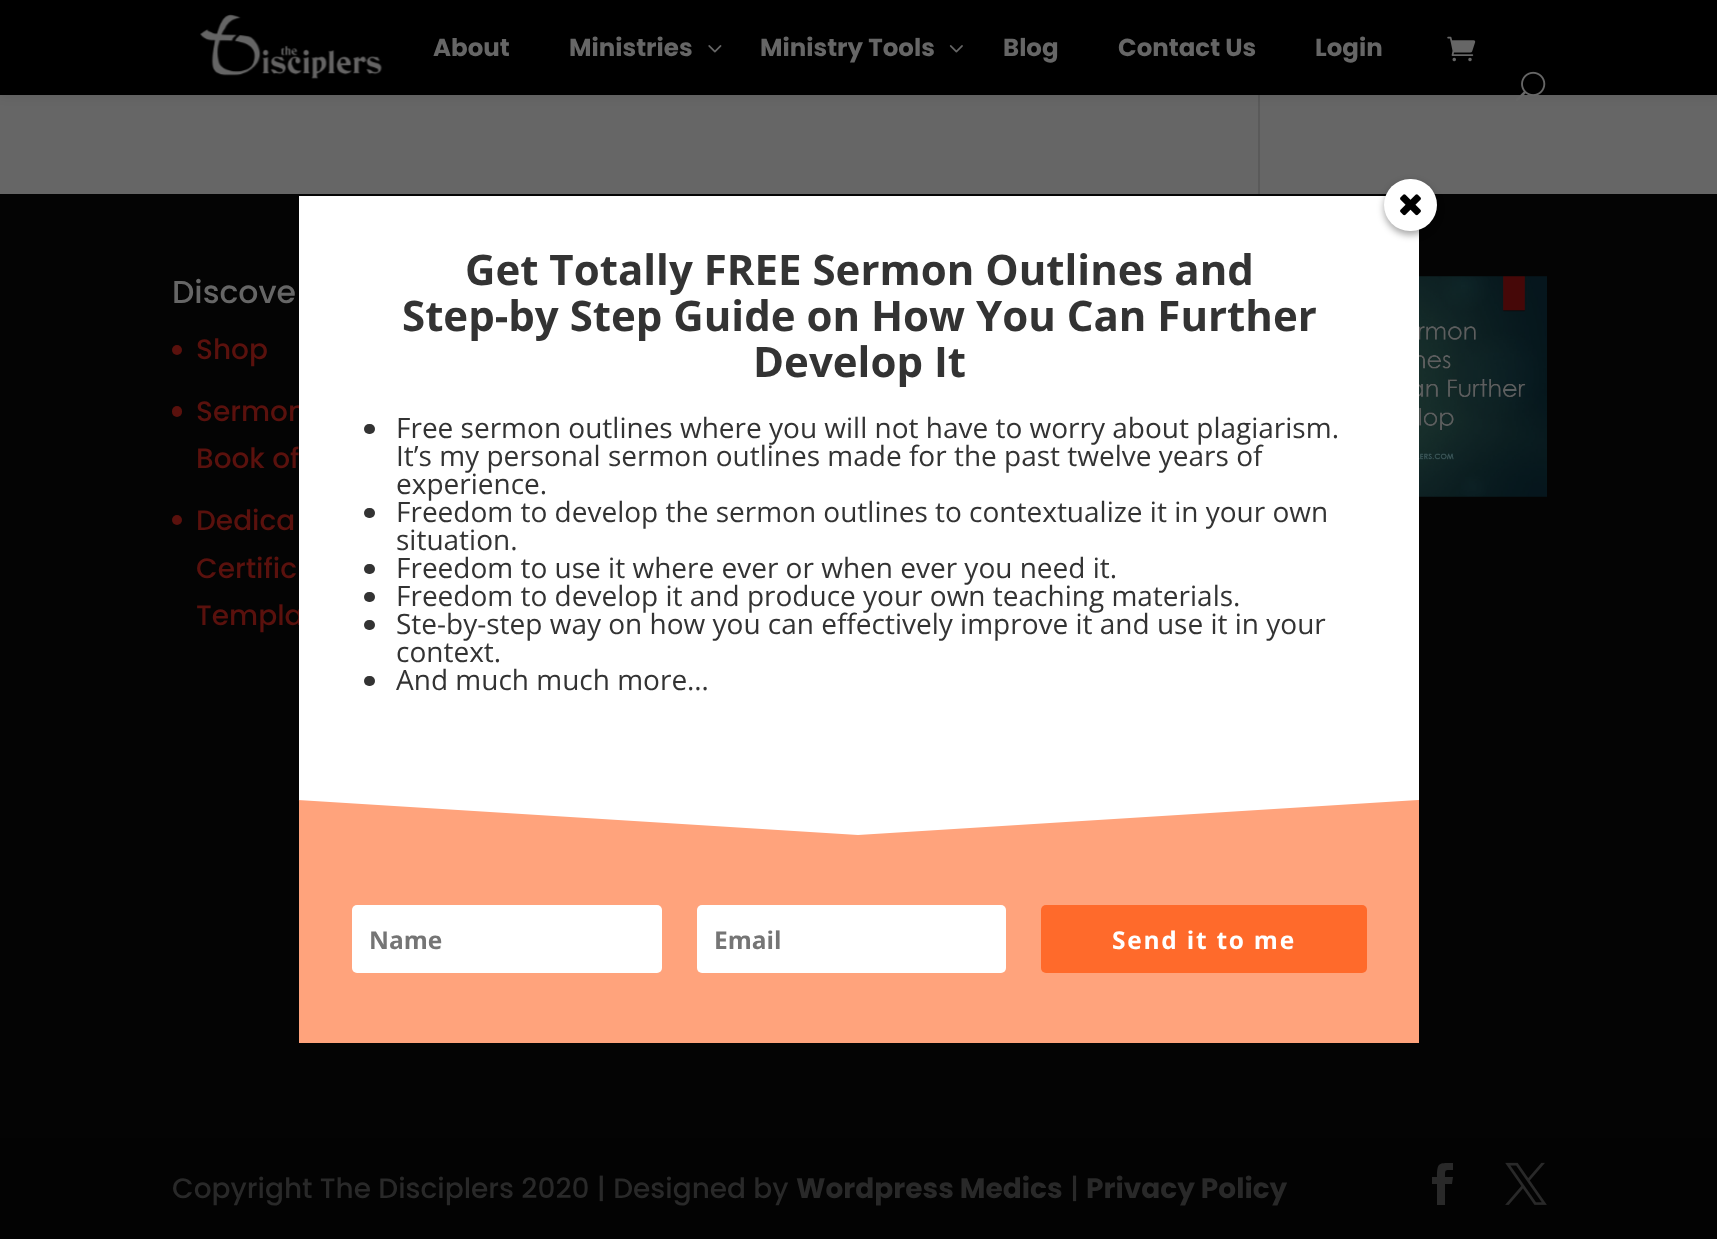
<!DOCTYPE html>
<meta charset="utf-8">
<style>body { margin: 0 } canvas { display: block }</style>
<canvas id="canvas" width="1717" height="1239"></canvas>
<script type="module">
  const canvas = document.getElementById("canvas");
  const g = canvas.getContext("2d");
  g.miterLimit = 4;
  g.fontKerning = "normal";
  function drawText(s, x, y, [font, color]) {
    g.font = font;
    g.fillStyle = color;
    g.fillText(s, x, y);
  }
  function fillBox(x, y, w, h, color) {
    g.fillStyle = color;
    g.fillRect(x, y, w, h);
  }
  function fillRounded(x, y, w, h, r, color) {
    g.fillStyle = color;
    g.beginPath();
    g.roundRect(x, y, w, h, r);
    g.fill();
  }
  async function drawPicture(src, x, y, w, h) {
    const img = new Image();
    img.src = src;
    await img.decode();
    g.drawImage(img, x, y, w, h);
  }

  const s1 = ["bold 24.5px Poppins", "#666666"];
  const s2 = ["500 31.5px Poppins", "#666666"];
  const s3 = ["500 28px Poppins", "#5A110D"];
  const s4 = ["500 28px Poppins", "#292929"];
  const s5 = ["bold 28px Poppins", "#292929"];
  const s6 = ["bold 42px Open Sans", "#333333"];
  const s7 = ["28px Open Sans", "#333333"];
  const s8 = ["bold 24.5px Open Sans", "#757575"];
  const s9 = ["bold 24.5px Open Sans", "#FFFFFF"];

  fillBox(0, 0, 1717, 1239, "#666666");
  fillBox(1258, 95, 2, 99, "#5A5A5A");
  g.fillStyle = "rgba(0, 0, 0, 0.1)";
  g.filter = "blur(6px)";
  g.beginPath();
  g.rect(0, 0, 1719, 95);
  g.fill();
  g.filter = "none";
  fillBox(0, 0, 1717, 95, "#000000");
  await drawPicture("pic1.png", 200, 14, 183, 66);
  drawText("About", 433, 56, s1);
  drawText("Ministries", 569, 56, s1);
  await drawPicture("pic2.png", 708, 45, 14, 8);
  drawText("Ministry Tools", 760, 56, s1);
  await drawPicture("pic3.png", 949, 45, 14, 8);
  drawText("Blog", 1003, 56, s1);
  drawText("Contact Us", 1118, 56, s1);
  drawText("Login", 1315, 56, s1);
  await drawPicture("pic4.png", 1447, 36, 29, 26);
  await drawPicture("pic5.png", 1516, 71, 30, 30);
  fillBox(0, 194, 1717, 944, "#040404");
  drawText("Discove", 172, 303, s2);
  g.fillStyle = "#5A110D";
  g.beginPath();
  g.arc(177, 350, 5, 0, Math.PI * 2);
  g.fill();
  drawText("Shop", 196, 359, s3);
  fillRounded(172, 406, 10, 11, 5, "#5A110D");
  drawText("Sermon", 196, 421, s3);
  drawText("Book of", 196, 468, s3);
  g.beginPath();
  g.arc(177, 520, 5, 0, Math.PI * 2);
  g.fill();
  drawText("Dedica", 196, 530, s3);
  drawText("Certific", 196, 578, s3);
  drawText("Templa", 196, 625, s3);
  await drawPicture("pic6.png", 1419, 276, 128, 221);
  fillBox(0, 1138, 1717, 101, "#030303");
  drawText("Copyright The Disciplers 2020 | Designed by", 172, 1198, s4);
  drawText("Wordpress Medics", 796, 1198, s5);
  drawText("|", 1070, 1198, s4);
  drawText("Privacy Policy", 1086, 1198, s5);
  g.beginPath();
  g.moveTo(1437, 1205);
  g.lineTo(1445, 1205);
  g.lineTo(1445, 1184);
  g.lineTo(1452, 1184);
  g.lineTo(1453, 1177);
  g.lineTo(1445, 1177);
  g.bezierCurveTo(1445, 1169, 1445, 1170, 1453, 1170);
  g.lineTo(1453, 1163);
  g.bezierCurveTo(1439, 1163, 1437, 1162, 1437, 1177);
  g.lineTo(1432, 1177);
  g.lineTo(1432, 1184);
  g.lineTo(1437, 1184);
  g.closePath();
  g.fill();
  await drawPicture("pic7.png", 1505, 1162, 42, 43);
  fillBox(299, 196, 1120, 604, "#FFFFFF");
  g.fillStyle = "rgba(0, 0, 0, 0.34)";
  g.filter = "blur(3.5px)";
  g.beginPath();
  g.roundRect(1384, 182, 53, 53, 26.5);
  g.fill();
  g.filter = "none";
  fillRounded(1384, 179, 53, 52, 26, "#FFFFFF");
  await drawPicture("pic8.png", 1400, 194, 21, 22);
  drawText("Get Totally FREE Sermon Outlines and", 465, 285, s6);
  drawText("Step-by Step Guide on How You Can Further", 402, 331, s6);
  drawText("Develop It", 753, 377, s6);
  fillRounded(364, 424, 11, 10, 5, "#333333");
  drawText("Free sermon outlines where you will not have to worry about plagiarism.", 396, 438, s7);
  drawText("It’s my personal sermon outlines made for the past twelve years of", 396, 466, s7);
  drawText("experience.", 396, 494, s7);
  fillRounded(364, 508, 11, 10, 5, "#333333");
  drawText("Freedom to develop the sermon outlines to contextualize it in your own", 396, 522, s7);
  drawText("situation.", 396, 550, s7);
  fillRounded(364, 564, 11, 10, 5, "#333333");
  drawText("Freedom to use it where ever or when ever you need it.", 396, 578, s7);
  fillRounded(364, 592, 11, 10, 5, "#333333");
  drawText("Freedom to develop it and produce your own teaching materials.", 396, 606, s7);
  fillRounded(364, 620, 11, 10, 5, "#333333");
  drawText("Ste-by-step way on how you can effectively improve it and use it in your", 396, 634, s7);
  drawText("context.", 396, 662, s7);
  fillRounded(364, 676, 11, 10, 5, "#333333");
  drawText("And much much more…", 396, 690, s7);
  fillBox(299, 800, 1120, 243, "#FFA37C");
  g.fillStyle = "#FFFFFF";
  g.beginPath();
  g.moveTo(298, 800);
  g.lineTo(858, 835);
  g.lineTo(1418, 800);
  g.closePath();
  g.fill();
  fillRounded(352, 905, 310, 68, 5, "#FFFFFF");
  drawText("Name", 369, 949, s8);
  fillRounded(697, 905, 309, 68, 5, "#FFFFFF");
  drawText("Email", 714, 949, s8);
  fillRounded(1041, 905, 326, 68, 5, "#FF6A2B");
  g.letterSpacing = "1.75px";
  drawText("Send it to me", 1112, 949, s9);
</script>
